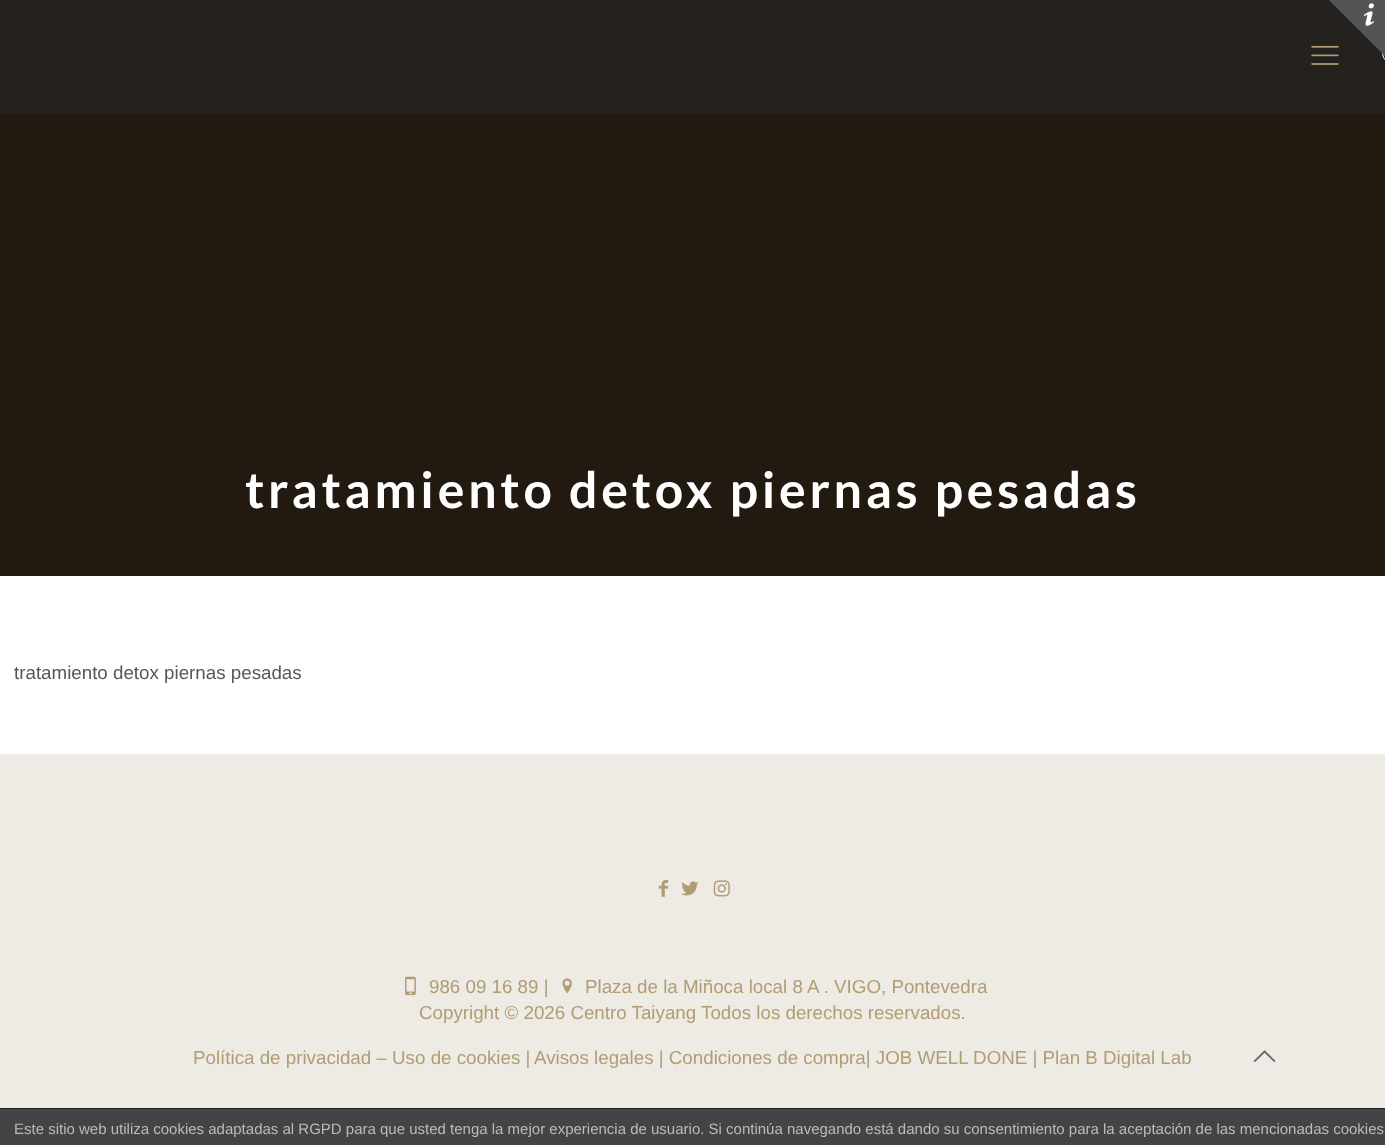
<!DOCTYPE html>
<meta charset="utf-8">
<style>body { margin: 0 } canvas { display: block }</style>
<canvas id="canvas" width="1385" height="1145"></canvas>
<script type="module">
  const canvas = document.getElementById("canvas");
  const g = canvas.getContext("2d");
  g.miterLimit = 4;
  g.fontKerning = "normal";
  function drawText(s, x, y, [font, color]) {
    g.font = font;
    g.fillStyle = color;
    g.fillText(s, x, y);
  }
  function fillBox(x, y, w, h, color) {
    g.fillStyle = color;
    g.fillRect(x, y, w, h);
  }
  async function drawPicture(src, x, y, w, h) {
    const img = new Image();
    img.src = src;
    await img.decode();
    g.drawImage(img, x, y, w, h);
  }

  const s1 = ["bold 50px Lato", "#FFFFFF"];
  const s2 = ["18.75px Liberation Sans", "#575757"];
  const s3 = ["18.75px Liberation Sans", "#B19C73"];
  const s4 = ["15px Liberation Sans", "#BBBBBB"];

  fillBox(0, 0, 1385, 1145, "#FFFFFF");
  fillBox(0, 0, 1385, 114, "#24211E");
  await drawPicture("pic2.png", 1311, 45, 28, 20);
  await drawPicture("pic3.png", 1382, 53, 3, 7);
  g.fillStyle = "#545454";
  g.beginPath();
  g.moveTo(1385, 0);
  g.lineTo(1385, 56);
  g.lineTo(1329, 0);
  g.closePath();
  g.fill();
  await drawPicture("pic1.png", 1363, 3, 11, 23);
  fillBox(0, 114, 1385, 462, "#221910");
  g.letterSpacing = "3.75px";
  drawText("tratamiento detox piernas pesadas", 245, 508, s1);
  g.letterSpacing = "0px";
  drawText("tratamiento detox piernas pesadas", 14, 679, s2);
  fillBox(0, 754, 1385, 354, "#EEEBE5");
  await drawPicture("pic4.png", 658, 880, 11, 17);
  await drawPicture("pic5.png", 681, 881, 18, 15);
  await drawPicture("pic6.png", 713, 880, 17, 17);
  await drawPicture("pic7.png", 405, 976, 11, 20);
  drawText("986 09 16 89 |", 429, 993, s3);
  await drawPicture("pic8.png", 562, 978, 10, 16);
  drawText("Plaza de la Miñoca local 8 A . VIGO, Pontevedra", 585, 993, s3);
  drawText("Copyright © 2026 Centro Taiyang Todos los derechos reservados.", 419, 1019, s3);
  fillBox(419, 1000, 547, 1, "#F0EDE8");
  drawText("Política de privacidad – Uso de cookies |", 193, 1064, s3);
  drawText("Avisos legales | Condiciones de compra| JOB WELL DONE | Plan B Digital Lab", 534, 1064, s3);
  await drawPicture("pic9.png", 1253, 1050, 23, 12);
  fillBox(0, 1109, 1385, 36, "#444444");
  fillBox(0, 1108, 1385, 1, "#222222");
  drawText("Este sitio web utiliza cookies adaptadas al RGPD para que usted tenga la mejor experiencia de usuario. Si continúa navegando está dando su consentimiento para la aceptación de las mencionadas cookies", 14, 1134, s4);
</script>
